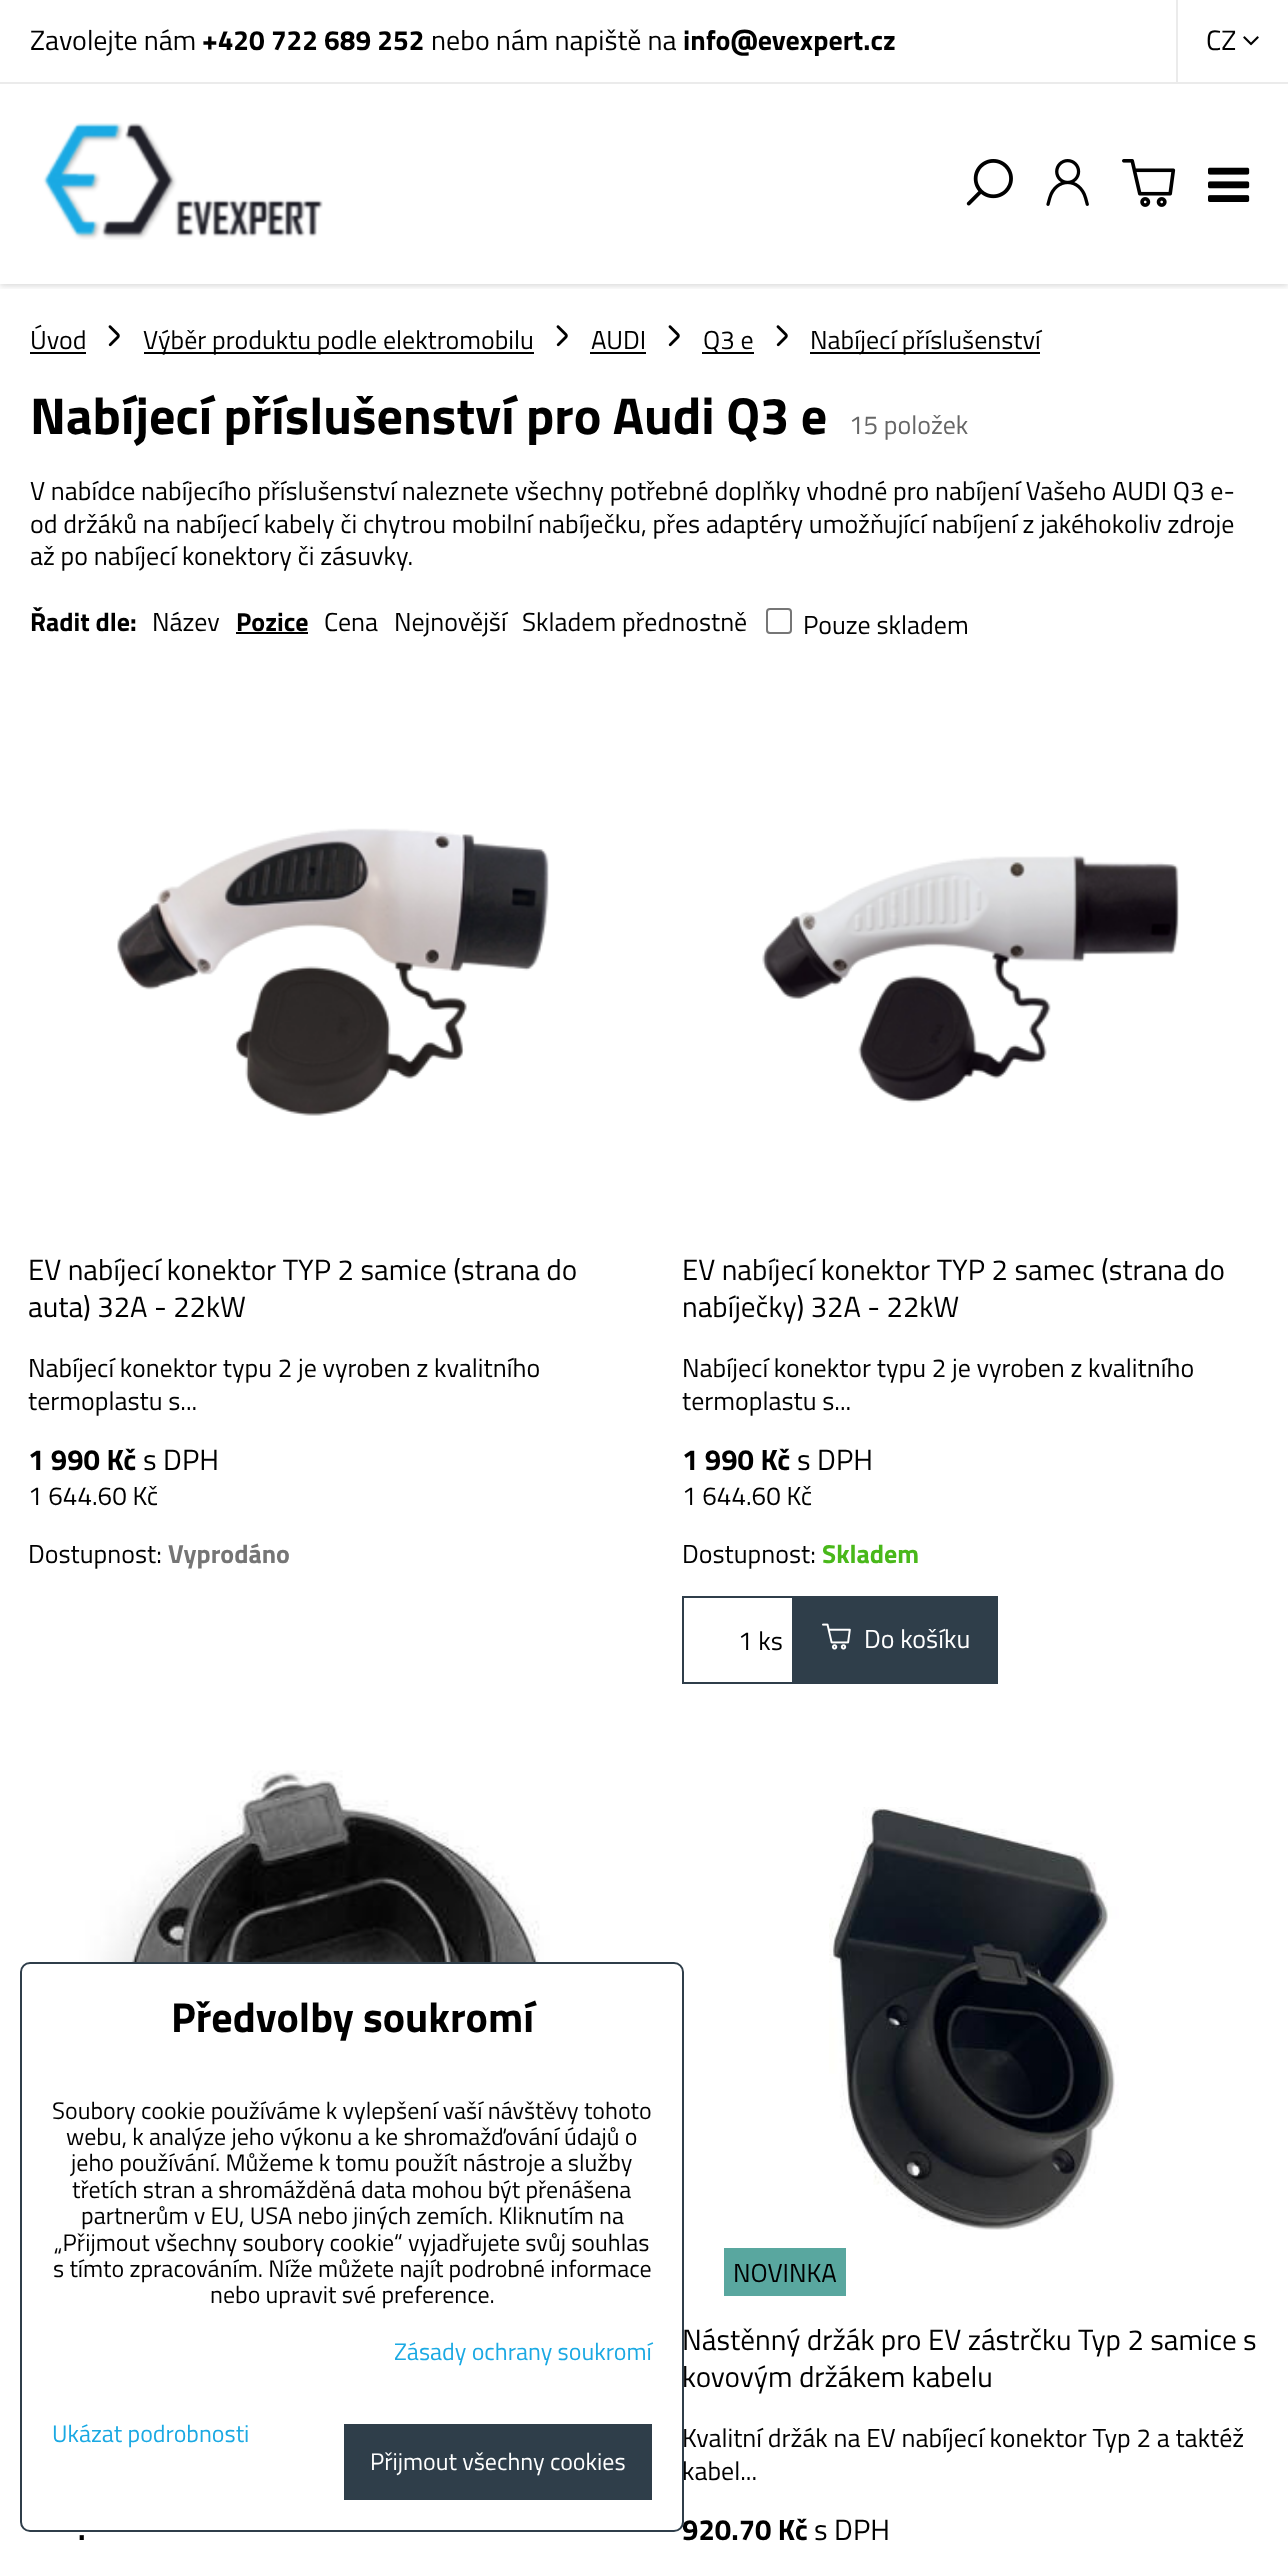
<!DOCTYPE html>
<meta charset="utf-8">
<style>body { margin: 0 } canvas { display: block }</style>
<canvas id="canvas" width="1288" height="2552"></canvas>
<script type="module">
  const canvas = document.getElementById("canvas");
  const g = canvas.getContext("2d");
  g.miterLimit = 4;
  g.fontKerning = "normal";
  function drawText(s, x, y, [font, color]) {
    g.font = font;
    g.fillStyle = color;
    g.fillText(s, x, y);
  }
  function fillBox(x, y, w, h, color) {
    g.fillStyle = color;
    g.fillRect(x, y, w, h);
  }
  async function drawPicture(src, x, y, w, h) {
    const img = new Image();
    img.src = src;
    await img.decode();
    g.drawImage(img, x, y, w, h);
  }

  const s1 = ["28px Titillium Web", "#000000"];
  const s2 = ["bold 28px Titillium Web", "#000000"];
  const s3 = ["26px Titillium Web", "#000000"];
  const s4 = ["bold 52px Titillium Web", "#000000"];
  const s5 = ["26px Titillium Web", "#666666"];
  const s6 = ["bold 26px Titillium Web", "#000000"];
  const s7 = ["29.25px Titillium Web", "#000000"];
  const s8 = ["bold 29.25px Titillium Web", "#000000"];
  const s9 = ["bold 26px Titillium Web", "#757575"];
  const s10 = ["bold 26px Titillium Web", "#49B81A"];
  const s11 = ["26px Titillium Web", "#FFFFFF"];
  const s12 = ["bold 42px Titillium Web", "#000000"];
  const s13 = ["24px Titillium Web", "#000000"];
  const s14 = ["24px Titillium Web", "#1AA9E3"];
  const s15 = ["24px Titillium Web", "#FFFFFF"];

  fillBox(0, 0, 1288, 2552, "#FFFFFF");
  g.save();
  g.beginPath();
  g.rect(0, 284, 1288, 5);
  g.clip();
  g.fillStyle = "rgba(0, 0, 0, 0.15)";
  g.filter = "blur(3px)";
  g.beginPath();
  g.rect(0, 2, 1288, 284);
  g.fill();
  g.filter = "none";
  g.restore();
  fillBox(0, 82, 1288, 2, "#EBEBEB");
  drawText("Zavolejte nám", 30, 50, s1);
  drawText("+420 722 689 252", 202, 50, s2);
  drawText("nebo nám napiště na", 431, 50, s1);
  drawText("info@evexpert.cz", 683, 50, s2);
  fillBox(1176, 0, 2, 82, "#EBEBEB");
  drawText("CZ", 1206, 50, s1);
  await drawPicture("pic1.png", 1243, 36, 16, 10);
  await drawPicture("pic2.png", 43, 123, 280, 117);
  await drawPicture("pic3.png", 966, 159, 47, 47);
  await drawPicture("pic4.png", 1046, 159, 43, 47);
  await drawPicture("pic5.png", 1122, 159, 54, 48);
  await drawPicture("pic6.png", 1208, 167, 42, 35);
  drawText("Úvod", 30, 349, s3);
  fillBox(30, 352, 56, 2, "#000000");
  await drawPicture("pic7.png", 108, 325, 12, 22);
  fillBox(144, 352, 390, 2, "#000000");
  drawText("Výběr produktu podle elektromobilu", 143, 349, s3);
  await drawPicture("pic7.png", 556, 325, 12, 22);
  drawText("AUDI", 591, 349, s3);
  fillBox(590, 352, 56, 2, "#000000");
  await drawPicture("pic7.png", 668, 325, 12, 22);
  fillBox(702, 352, 52, 2, "#000000");
  drawText("Q3 e", 703, 349, s3);
  await drawPicture("pic7.png", 776, 325, 12, 22);
  fillBox(810, 352, 230, 2, "#000000");
  drawText("Nabíjecí příslušenství", 810, 349, s3);
  drawText("Nabíjecí příslušenství pro Audi Q3 e", 30, 434, s4);
  drawText("15 položek", 849, 434, s5);
  drawText("V nabídce nabíjecího příslušenství naleznete všechny potřebné doplňky vhodné pro nabíjení Vašeho AUDI Q3 e-", 30, 500, s3);
  drawText("od držáků na nabíjecí kabely či chytrou mobilní nabíječku, přes adaptéry umožňující nabíjení z jakéhokoliv zdroje", 30, 533, s3);
  drawText("až po nabíjecí konektory či zásuvky.", 30, 565, s3);
  drawText("Řadit dle:", 30, 631, s6);
  drawText("Název", 152, 631, s3);
  drawText("Pozice", 236, 631, s6);
  fillBox(236, 632, 72, 2, "#000000");
  drawText("Cena", 324, 631, s3);
  drawText("Nejnovější", 394, 631, s3);
  drawText("Skladem přednostně", 522, 631, s3);
  g.beginPath();
  g.roundRect(767, 609, 24, 24, 3);
  g.strokeStyle = "#767676";
  g.lineWidth = 2;
  g.stroke();
  drawText("Pouze skladem", 803, 634, s3);
  await drawPicture("pic8.png", 117, 828, 432, 288);
  drawText("EV nabíjecí konektor TYP 2 samice (strana do", 28, 1280, s7);
  drawText("auta) 32A - 22kW", 28, 1317, s7);
  drawText("Nabíjecí konektor typu 2 je vyroben z kvalitního", 28, 1377, s3);
  drawText("termoplastu s...", 28, 1410, s3);
  drawText("1 990 Kč", 28, 1470, s8);
  drawText("s DPH", 143, 1470, s7);
  drawText("1 644.60 Kč", 28, 1505, s3);
  drawText("Dostupnost:", 28, 1563, s3);
  drawText("Vyprodáno", 168, 1563, s9);
  await drawPicture("pic9.png", 762, 855, 417, 248);
  drawText("EV nabíjecí konektor TYP 2 samec (strana do", 682, 1280, s7);
  drawText("nabíječky) 32A - 22kW", 682, 1317, s7);
  drawText("Nabíjecí konektor typu 2 je vyroben z kvalitního", 682, 1377, s3);
  drawText("termoplastu s...", 682, 1410, s3);
  drawText("1 990 Kč", 682, 1470, s8);
  drawText("s DPH", 797, 1470, s7);
  drawText("1 644.60 Kč", 682, 1505, s3);
  drawText("Dostupnost:", 682, 1563, s3);
  drawText("Skladem", 822, 1563, s10);
  g.strokeStyle = "#2F3E4A";
  g.strokeRect(683, 1597, 110, 86);
  drawText("1 ks", 738, 1650, s3);
  fillBox(794, 1596, 204, 88, "#2F3E4A");
  await drawPicture("pic10.png", 822, 1623, 29, 27);
  drawText("Do košíku", 864, 1648, s11);
  await drawPicture("pic11.png", 79, 1770, 476, 192);
  drawText(".", 78, 2540, s8);
  await drawPicture("pic12.png", 829, 1807, 290, 423);
  fillBox(724, 2248, 122, 48, "#59A79F");
  drawText("NOVINKA", 733, 2282, s3);
  drawText("Nástěnný držák pro EV zástrčku Typ 2 samice s", 682, 2350, s7);
  drawText("kovovým držákem kabelu", 682, 2387, s7);
  drawText("Kvalitní držák na EV nabíjecí konektor Typ 2 a taktéž", 682, 2447, s3);
  drawText("kabel...", 682, 2480, s3);
  drawText("920.70 Kč", 682, 2540, s8);
  drawText("s DPH", 814, 2540, s7);
  g.fillStyle = "#FFFFFF";
  g.beginPath();
  g.roundRect(21, 1963, 662, 568, 9);
  g.fill();
  g.stroke();
  drawText("Předvolby soukromí", 171, 2032, s12);
  drawText("Soubory cookie používáme k vylepšení vaší návštěvy tohoto", 52, 2119, s13);
  drawText("webu, k analýze jeho výkonu a ke shromažďování údajů o", 66, 2145, s13);
  drawText("jeho používání. Můžeme k tomu použít nástroje a služby", 71, 2171, s13);
  drawText("třetích stran a shromážděná data mohou být přenášena", 72, 2198, s13);
  drawText("partnerům v EU, USA nebo jiných zemích. Kliknutím na", 81, 2224, s13);
  drawText("„Přijmout všechny soubory cookie“ vyjadřujete svůj souhlas", 54, 2251, s13);
  drawText("s tímto zpracováním. Níže můžete najít podrobné informace", 53, 2277, s13);
  drawText("nebo upravit své preference.", 210, 2303, s13);
  drawText("Zásady ochrany soukromí", 394, 2360, s14);
  drawText("Ukázat podrobnosti", 52, 2442, s14);
  fillBox(344, 2424, 308, 76, "#2F3E4A");
  drawText("Přijmout všechny cookies", 370, 2470, s15);
</script>
